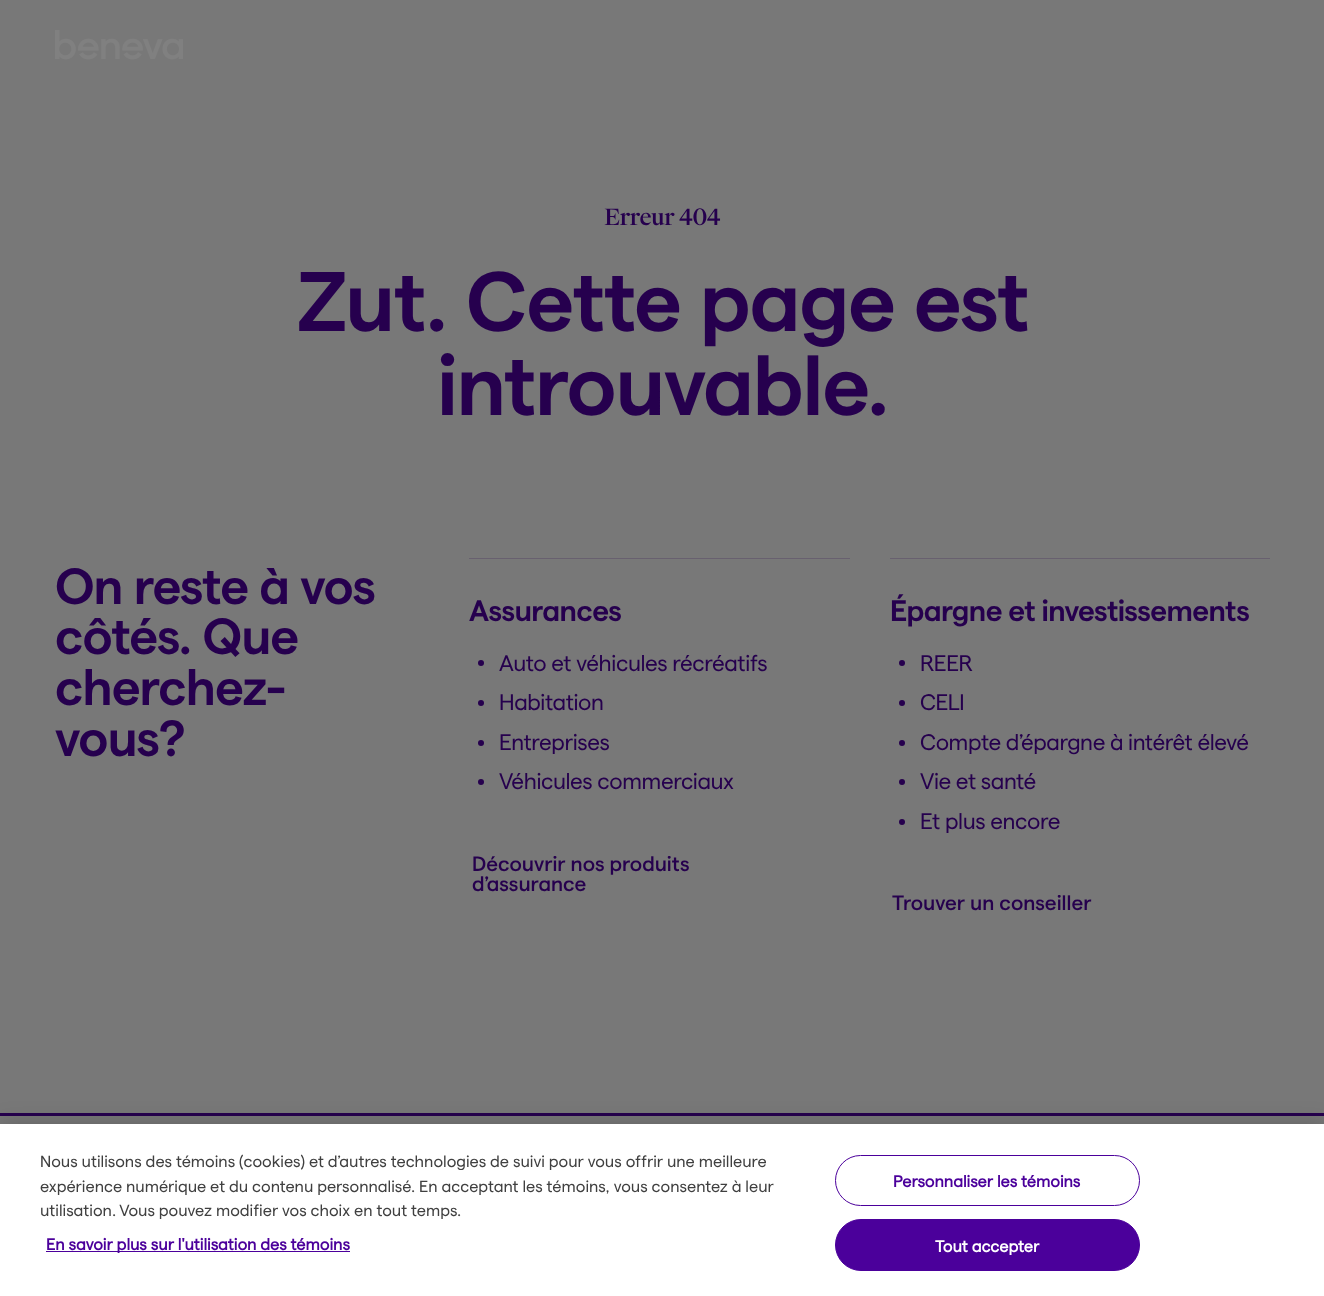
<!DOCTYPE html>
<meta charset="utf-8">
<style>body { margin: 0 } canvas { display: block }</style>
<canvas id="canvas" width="1324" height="1296"></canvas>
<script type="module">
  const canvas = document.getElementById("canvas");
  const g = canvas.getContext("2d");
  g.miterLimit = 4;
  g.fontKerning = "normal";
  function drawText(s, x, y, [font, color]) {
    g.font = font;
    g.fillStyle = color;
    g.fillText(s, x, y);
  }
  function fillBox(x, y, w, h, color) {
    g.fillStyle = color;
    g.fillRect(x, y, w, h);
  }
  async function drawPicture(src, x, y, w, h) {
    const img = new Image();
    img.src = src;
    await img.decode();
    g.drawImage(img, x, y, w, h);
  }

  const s1 = ["500 22.5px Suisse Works", "#26004E"];
  const s2 = ["600 84.25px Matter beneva", "#26004E"];
  const s3 = ["600 50.75px Matter beneva", "#26004E"];
  const s4 = ["600 29.5px Matter beneva", "#26004E"];
  const s5 = ["22.5px Matter beneva", "#26004E"];
  const s6 = ["500 20.75px Matter beneva", "#26004E"];
  const s7 = ["16.25px Matter beneva", "#404040"];
  const s8 = ["bold 16.25px Matter beneva", "#4B009B"];
  const s9 = ["bold 16.25px Matter beneva", "#FFFFFF"];

  fillBox(0, 0, 1324, 1296, "#787878");
  await drawPicture("pic1.png", 55, 30, 128, 30);
  g.letterSpacing = "-0.5px";
  drawText("Erreur 404", 604, 225, s1);
  g.letterSpacing = "-1.25px";
  drawText("Zut. Cette page est", 297, 331, s2);
  drawText("introuvable.", 437, 415, s2);
  g.letterSpacing = "-1px";
  drawText("On reste à vos", 55, 604, s3);
  drawText("côtés. Que", 55, 654, s3);
  drawText("cherchez-", 55, 705, s3);
  drawText("vous?", 55, 756, s3);
  fillBox(469, 558, 381, 1, "#68606F");
  g.letterSpacing = "-0.6px";
  drawText("Assurances", 469, 621, s4);
  g.beginPath();
  g.arc(481, 663, 3, 0, Math.PI * 2);
  g.fill();
  g.letterSpacing = "-0.4px";
  drawText("Auto et véhicules récréatifs", 499, 671, s5);
  g.beginPath();
  g.arc(481, 703, 3, 0, Math.PI * 2);
  g.fill();
  drawText("Habitation", 499, 710, s5);
  g.beginPath();
  g.arc(481, 743, 3, 0, Math.PI * 2);
  g.fill();
  drawText("Entreprises", 499, 750, s5);
  g.beginPath();
  g.arc(481, 782, 3, 0, Math.PI * 2);
  g.fill();
  drawText("Véhicules commerciaux", 499, 789, s5);
  g.letterSpacing = "0px";
  drawText("Découvrir nos produits", 472, 871, s6);
  drawText("d’assurance", 472, 891, s6);
  fillBox(890, 558, 380, 1, "#68606F");
  g.letterSpacing = "-0.6px";
  drawText("Épargne et investissements", 890, 621, s4);
  g.beginPath();
  g.arc(902, 663, 3, 0, Math.PI * 2);
  g.fill();
  g.letterSpacing = "-0.4px";
  drawText("REER", 920, 671, s5);
  g.beginPath();
  g.arc(902, 703, 3, 0, Math.PI * 2);
  g.fill();
  drawText("CELI", 920, 710, s5);
  g.beginPath();
  g.arc(902, 743, 3, 0, Math.PI * 2);
  g.fill();
  drawText("Compte d’épargne à intérêt élevé", 920, 750, s5);
  g.beginPath();
  g.arc(902, 782, 3, 0, Math.PI * 2);
  g.fill();
  drawText("Vie et santé", 920, 789, s5);
  g.beginPath();
  g.arc(902, 822, 3, 0, Math.PI * 2);
  g.fill();
  drawText("Et plus encore", 920, 829, s5);
  g.letterSpacing = "0px";
  drawText("Trouver un conseiller", 892, 910, s6);
  fillBox(0, 1113, 1324, 3, "#26004E");
  g.fillStyle = "rgba(0, 0, 0, 0.2)";
  g.filter = "blur(11px)";
  g.beginPath();
  g.rect(0, 1124, 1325, 172);
  g.fill();
  g.filter = "none";
  fillBox(0, 1124, 1324, 172, "#FFFFFF");
  drawText("Nous utilisons des témoins (cookies) et d’autres technologies de suivi pour vous offrir une meilleure", 40, 1167, s7);
  drawText("expérience numérique et du contenu personnalisé. En acceptant les témoins, vous consentez à leur", 40, 1192, s7);
  drawText("utilisation. Vous pouvez modifier vos choix en tout temps.", 40, 1216, s7);
  fillBox(46, 1251, 304, 1, "#4B009B");
  drawText("En savoir plus sur l'utilisation des témoins", 46, 1250, s8);
  g.beginPath();
  g.roundRect(835.5, 1155.5, 304, 50, 25);
  g.strokeStyle = "#4B009B";
  g.stroke();
  drawText("Personnaliser les témoins", 893, 1187, s8);
  g.beginPath();
  g.roundRect(835.5, 1219.5, 304, 51, 25.5);
  g.fill();
  g.stroke();
  drawText("Tout accepter", 935, 1252, s9);
</script>
